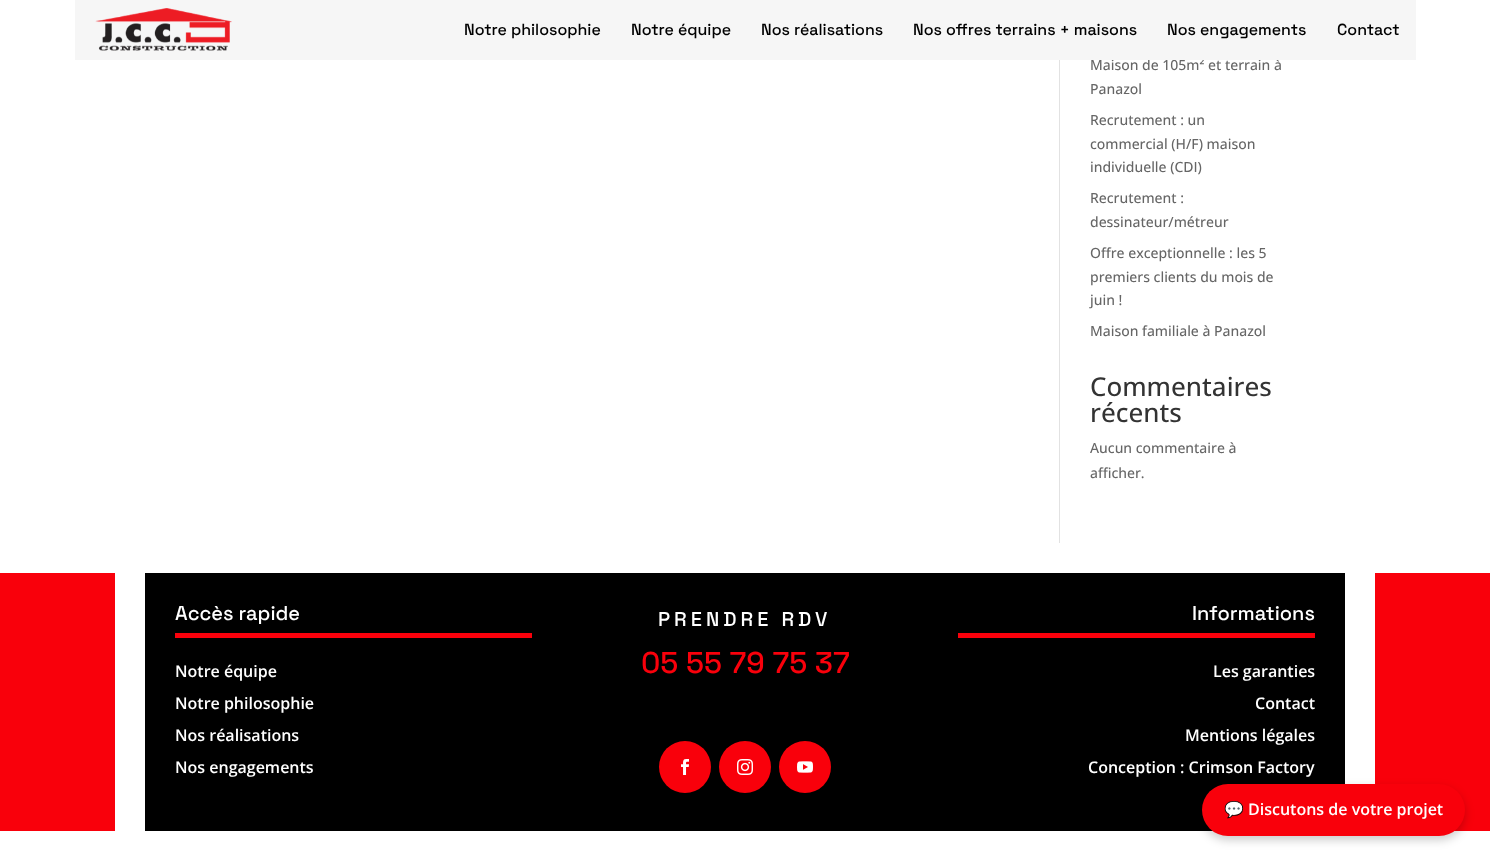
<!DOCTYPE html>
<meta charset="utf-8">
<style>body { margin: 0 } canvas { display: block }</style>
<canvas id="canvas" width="1490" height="861"></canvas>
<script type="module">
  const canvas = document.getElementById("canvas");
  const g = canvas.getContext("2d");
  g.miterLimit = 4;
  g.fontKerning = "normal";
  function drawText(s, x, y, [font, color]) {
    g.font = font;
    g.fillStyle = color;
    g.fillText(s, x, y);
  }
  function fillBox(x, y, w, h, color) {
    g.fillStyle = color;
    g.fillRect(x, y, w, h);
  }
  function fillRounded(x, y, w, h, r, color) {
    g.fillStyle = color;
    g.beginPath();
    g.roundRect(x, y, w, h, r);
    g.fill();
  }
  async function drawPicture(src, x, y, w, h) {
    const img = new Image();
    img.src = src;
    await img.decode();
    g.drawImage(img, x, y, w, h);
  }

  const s1 = ["500 14px Open Sans", "#666666"];
  const s2 = ["500 16px Space Grotesk", "#000000"];
  const s3 = ["500 26px Open Sans", "#333333"];
  const s4 = ["500 20px Space Grotesk", "#FFFFFF"];
  const s5 = ["600 16px Open Sans", "#FFFFFF"];
  const s6 = ["500 30px Space Grotesk", "#F9000B"];
  const s7 = ["bold 16px Noto Color Emoji", "#FFFFFF"];

  fillBox(0, 0, 1490, 861, "#FFFFFF");
  drawText("Maison de 105m² et terrain à", 1090, 70, s1);
  fillBox(75, 0, 1341, 60, "#F6F6F6");
  await drawPicture("pic1.png", 95, 8, 137, 43);
  drawText("Notre philosophie", 464, 35, s2);
  drawText("Notre équipe", 631, 35, s2);
  drawText("Nos réalisations", 761, 35, s2);
  drawText("Nos offres terrains + maisons", 913, 35, s2);
  drawText("Nos engagements", 1167, 35, s2);
  drawText("Contact", 1337, 35, s2);
  fillBox(1059, 60, 1, 483, "#E2E2E2");
  drawText("Panazol", 1090, 94, s1);
  drawText("Recrutement : un", 1090, 125, s1);
  drawText("commercial (H/F) maison", 1090, 149, s1);
  drawText("individuelle (CDI)", 1090, 172, s1);
  drawText("Recrutement :", 1090, 203, s1);
  drawText("dessinateur/métreur", 1090, 227, s1);
  drawText("Offre exceptionnelle : les 5", 1090, 258, s1);
  drawText("premiers clients du mois de", 1090, 282, s1);
  drawText("juin !", 1090, 305, s1);
  drawText("Maison familiale à Panazol", 1090, 336, s1);
  drawText("Commentaires", 1090, 396, s3);
  drawText("récents", 1090, 422, s3);
  drawText("Aucun commentaire à", 1090, 453, s1);
  drawText("afficher.", 1090, 478, s1);
  fillBox(0, 573, 1490, 258, "#F9000B");
  g.strokeStyle = "#FFFFFF";
  g.lineWidth = 30;
  g.strokeRect(130, 558, 1230, 288);
  fillBox(145, 573, 1200, 258, "#000000");
  fillBox(175, 633, 357, 5, "#F9000B");
  drawText("Accès rapide", 175, 620, s4);
  drawText("Notre équipe", 175, 677, s5);
  drawText("Notre philosophie", 175, 709, s5);
  drawText("Nos réalisations", 175, 741, s5);
  drawText("Nos engagements", 175, 773, s5);
  g.letterSpacing = "4px";
  drawText("PRENDRE RDV", 658, 626, s4);
  g.letterSpacing = "0px";
  drawText("05 55 79 75 37", 641, 673, s6);
  g.beginPath();
  g.arc(685, 767, 26, 0, Math.PI * 2);
  g.fill();
  await drawPicture("pic2.png", 681, 759, 8, 16);
  g.beginPath();
  g.arc(745, 767, 26, 0, Math.PI * 2);
  g.fill();
  await drawPicture("pic3.png", 737, 759, 16, 16);
  g.beginPath();
  g.arc(805, 767, 26, 0, Math.PI * 2);
  g.fill();
  await drawPicture("pic4.png", 797, 761, 16, 12);
  fillBox(958, 633, 357, 5, "#F9000B");
  drawText("Informations", 1192, 620, s4);
  drawText("Les garanties", 1213, 677, s5);
  drawText("Contact", 1255, 709, s5);
  drawText("Mentions légales", 1185, 741, s5);
  drawText("Conception : Crimson Factory", 1088, 773, s5);
  g.fillStyle = "rgba(0, 0, 0, 0.2)";
  g.filter = "blur(5px)";
  g.beginPath();
  g.roundRect(1202, 788, 263, 52, 26);
  g.fill();
  g.filter = "none";
  fillRounded(1202, 784, 263, 52, 26, "#F9000B");
  drawText("💬", 1224, 815, s7);
  drawText("Discutons de votre projet", 1248, 815, s5);
</script>
